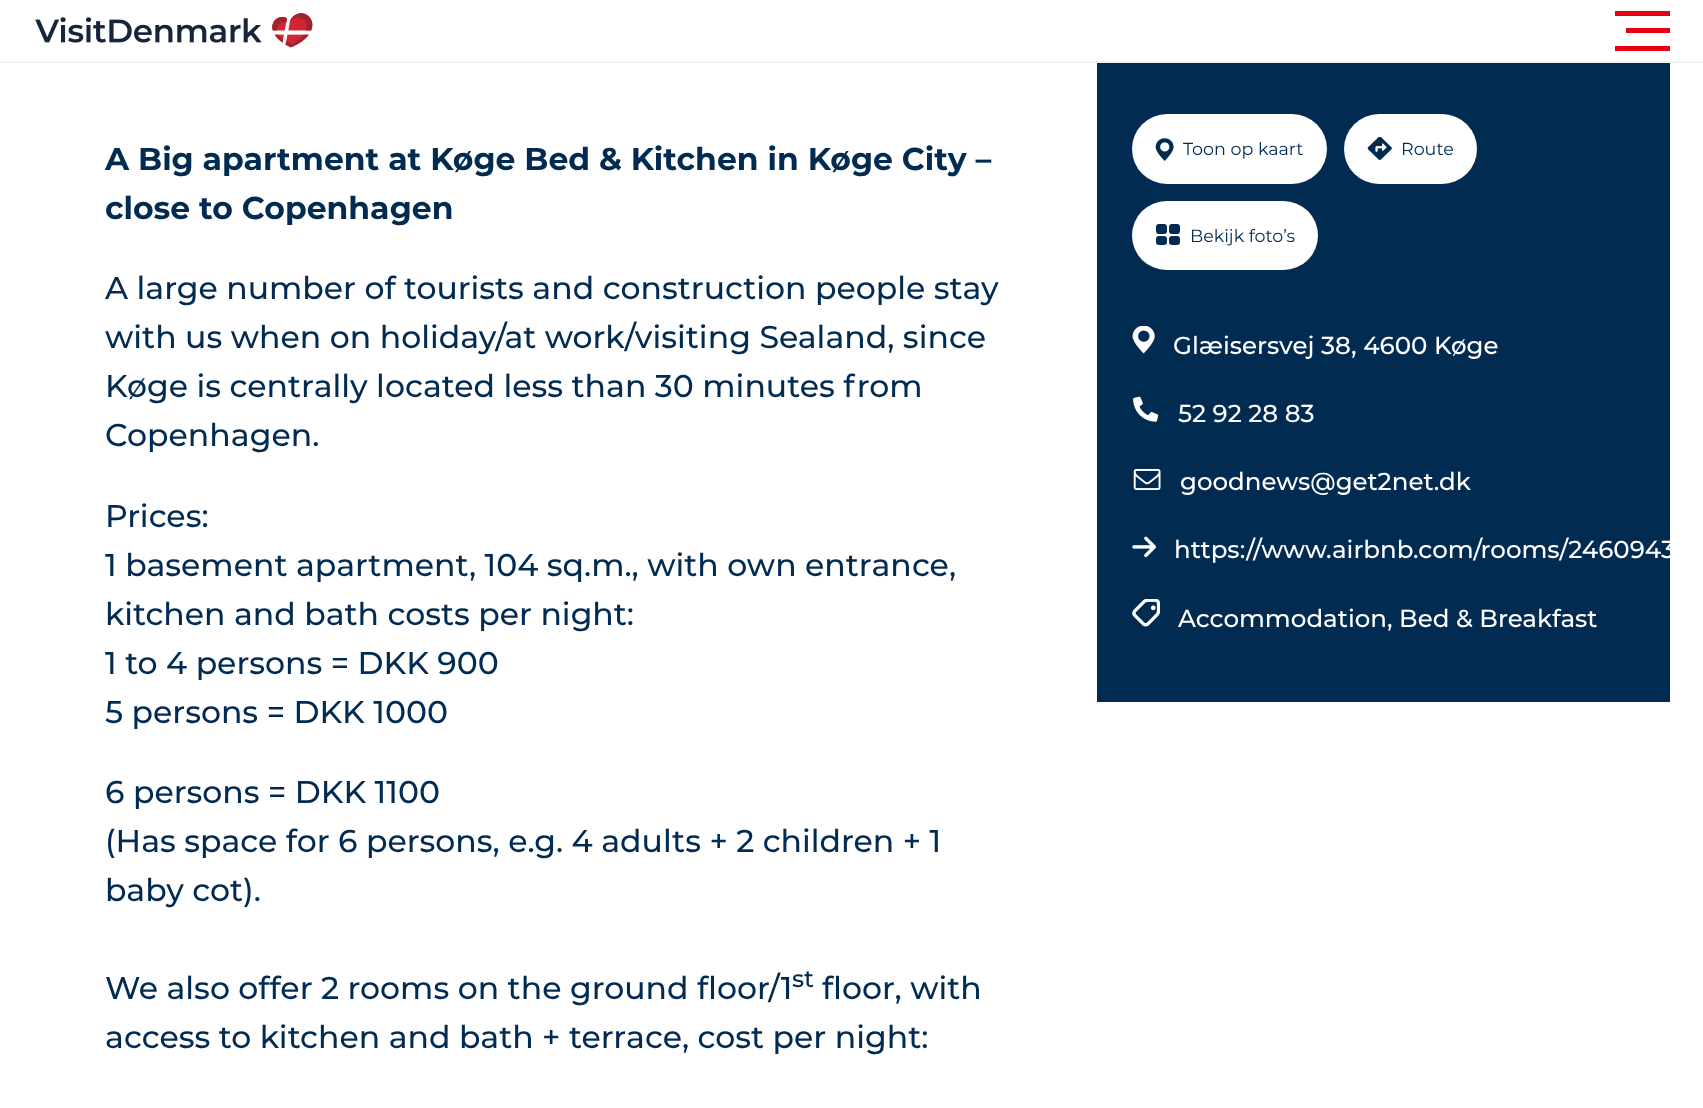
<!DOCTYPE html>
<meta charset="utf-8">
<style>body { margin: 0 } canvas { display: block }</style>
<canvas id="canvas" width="1703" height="1108"></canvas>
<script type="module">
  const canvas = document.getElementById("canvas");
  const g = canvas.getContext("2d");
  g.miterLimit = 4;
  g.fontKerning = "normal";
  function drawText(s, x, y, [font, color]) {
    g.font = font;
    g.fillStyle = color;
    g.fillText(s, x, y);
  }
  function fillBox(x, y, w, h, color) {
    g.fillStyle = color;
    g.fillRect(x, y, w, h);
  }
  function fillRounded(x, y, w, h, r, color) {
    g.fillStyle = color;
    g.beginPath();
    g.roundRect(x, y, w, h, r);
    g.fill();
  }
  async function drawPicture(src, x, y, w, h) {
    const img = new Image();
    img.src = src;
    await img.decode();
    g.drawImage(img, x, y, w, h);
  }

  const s1 = ["bold 31.5px Montserrat", "#022B52"];
  const s2 = ["500 31.5px Montserrat", "#022B52"];
  const s3 = ["500 24px Montserrat", "#022B52"];
  const s4 = ["17.5px Montserrat", "#022B52"];
  const s5 = ["500 24.5px Montserrat", "#FFFFFF"];

  fillBox(0, 0, 1703, 1108, "#FFFFFF");
  fillBox(0, 61, 1703, 2, "#F0F1F3");
  await drawPicture("pic1.png", 35, 13, 278, 35);
  fillBox(1615, 11, 55, 5, "#E70013");
  fillBox(1626, 28, 44, 5, "#E70013");
  fillBox(1615, 46, 55, 5, "#E70013");
  drawText("A Big apartment at Køge Bed & Kitchen in Køge City –", 105, 170, s1);
  drawText("close to Copenhagen", 105, 219, s1);
  drawText("A large number of tourists and construction people stay", 105, 299, s2);
  drawText("with us when on holiday/at work/visiting Sealand, since", 105, 348, s2);
  drawText("Køge is centrally located less than 30 minutes from", 105, 397, s2);
  drawText("Copenhagen.", 105, 446, s2);
  drawText("Prices:", 105, 527, s2);
  drawText("1 basement apartment, 104 sq.m., with own entrance,", 105, 576, s2);
  drawText("kitchen and bath costs per night:", 105, 625, s2);
  drawText("1 to 4 persons = DKK 900", 105, 674, s2);
  drawText("5 persons = DKK 1000", 105, 723, s2);
  drawText("6 persons = DKK 1100", 105, 803, s2);
  drawText("(Has space for 6 persons, e.g. 4 adults + 2 children + 1", 105, 852, s2);
  drawText("baby cot).", 105, 901, s2);
  drawText("We also offer 2 rooms on the ground floor/1", 105, 999, s2);
  drawText("st", 792, 987, s3);
  drawText("floor, with", 822, 999, s2);
  drawText("access to kitchen and bath + terrace, cost per night:", 105, 1048, s2);
  fillBox(1097, 63, 573, 639, "#022B52");
  fillRounded(1132, 114, 195, 70, 35, "#FFFFFF");
  await drawPicture("pic2.png", 1155, 138, 19, 23);
  drawText("Toon op kaart", 1183, 155, s4);
  fillRounded(1344, 114, 133, 70, 35, "#FFFFFF");
  await drawPicture("pic3.png", 1367, 137, 25, 23);
  drawText("Route", 1401, 155, s4);
  fillRounded(1132, 201, 186, 69, 34.5, "#FFFFFF");
  fillRounded(1169, 224, 11, 10, 3, "#022B52");
  fillRounded(1169, 236, 11, 9, 3, "#022B52");
  fillRounded(1156, 224, 11, 10, 3, "#022B52");
  fillRounded(1156, 236, 11, 9, 3, "#022B52");
  drawText("Bekijk foto’s", 1190, 242, s4);
  await drawPicture("pic4.png", 1132, 326, 23, 28);
  drawText("Glæisersvej 38, 4600 Køge", 1173, 354, s5);
  await drawPicture("pic5.png", 1133, 396, 26, 26);
  drawText("52 92 28 83", 1178, 422, s5);
  await drawPicture("pic6.png", 1133, 469, 28, 21);
  drawText("goodnews@get2net.dk", 1180, 490, s5);
  await drawPicture("pic7.png", 1132, 536, 24, 22);
  drawText("https://www.airbnb.com/rooms/2460943", 1174, 558, s5);
  await drawPicture("pic8.png", 1132, 599, 28, 28);
  drawText("Accommodation, Bed & Breakfast", 1178, 627, s5);
</script>
